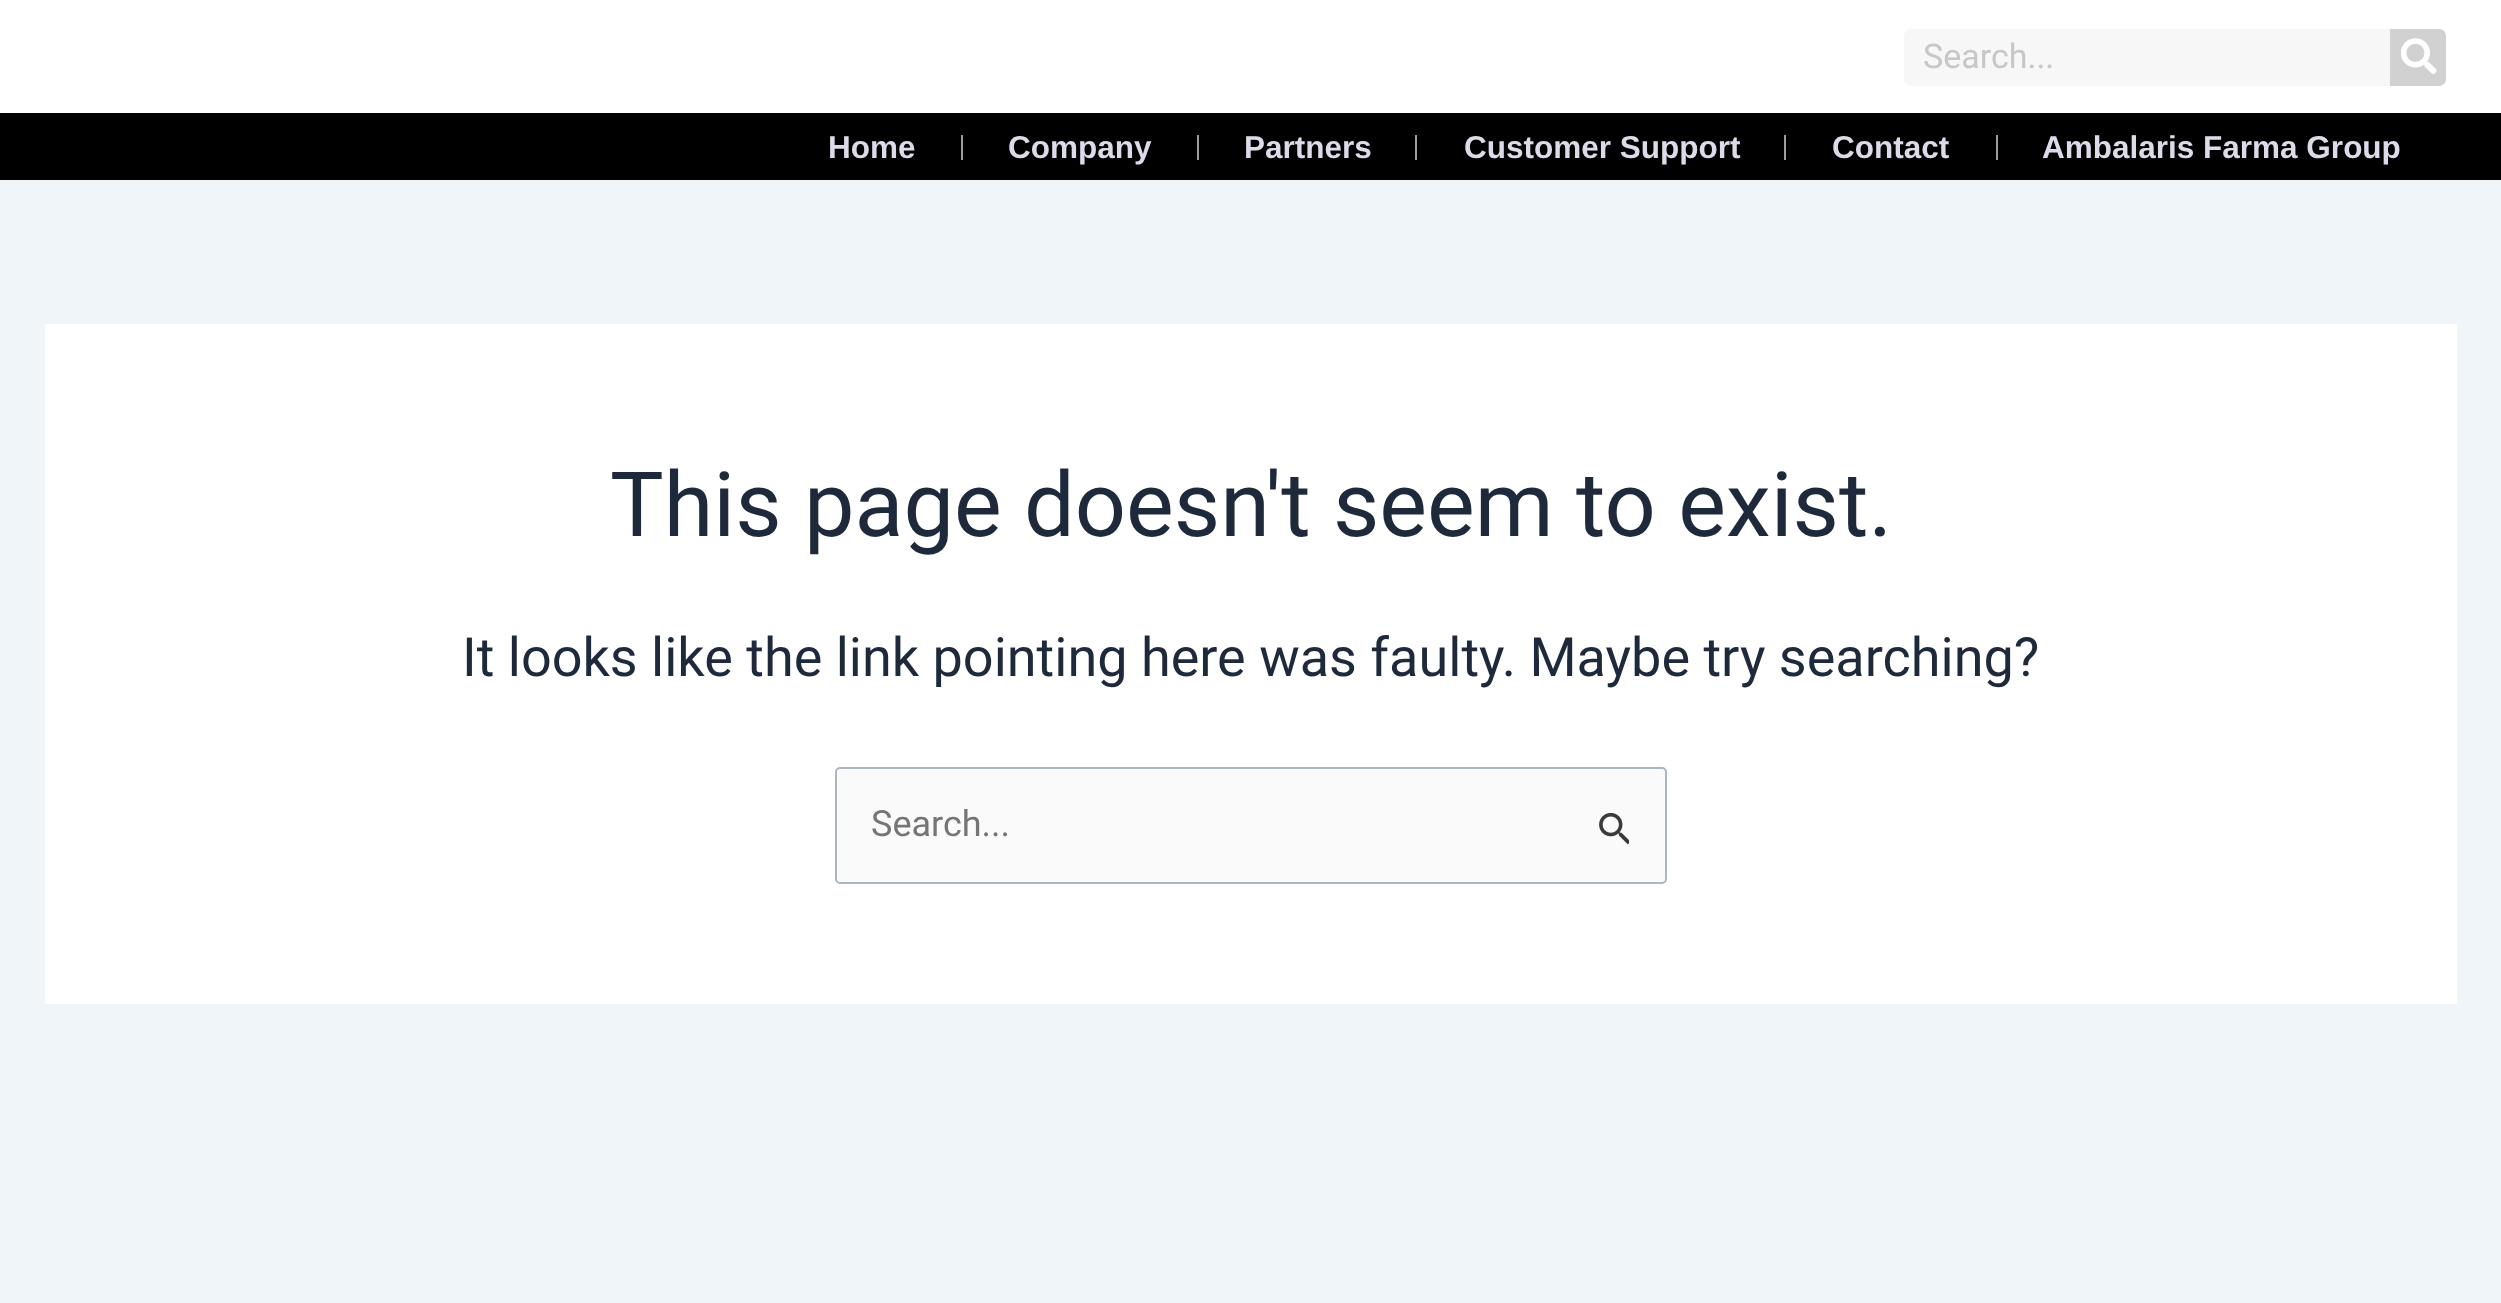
<!DOCTYPE html>
<meta charset="utf-8">
<style>body { margin: 0 } canvas { display: block }</style>
<canvas id="canvas" width="2501" height="1303"></canvas>
<script type="module">
  const canvas = document.getElementById("canvas");
  const g = canvas.getContext("2d");
  g.miterLimit = 4;
  g.fontKerning = "normal";
  function drawText(s, x, y, [font, color]) {
    g.font = font;
    g.fillStyle = color;
    g.fillText(s, x, y);
  }
  function fillBox(x, y, w, h, color) {
    g.fillStyle = color;
    g.fillRect(x, y, w, h);
  }
  function fillRounded(x, y, w, h, r, color) {
    g.fillStyle = color;
    g.beginPath();
    g.roundRect(x, y, w, h, r);
    g.fill();
  }
  async function drawPicture(src, x, y, w, h) {
    const img = new Image();
    img.src = src;
    await img.decode();
    g.drawImage(img, x, y, w, h);
  }

  const s1 = ["34px Roboto", "#C7C7C7"];
  const s2 = ["bold 31.5px Liberation Sans", "#DCDBE9"];
  const s3 = ["90px Roboto", "#1E293B"];
  const s4 = ["54px Roboto", "#1E293B"];
  const s5 = ["36px Roboto", "#757575"];

  fillBox(0, 0, 2501, 1303, "#F0F5FA");
  fillBox(0, 0, 2501, 113, "#FFFFFF");
  fillRounded(1904, 29, 542, 57, 7, "#F7F7F7");
  drawText("Search...", 1923, 68, s1);
  g.fillStyle = "#D1D1D1";
  g.beginPath();
  g.roundRect(2390, 29, 56, 57, [0, 7, 7, 0]);
  g.fill();
  await drawPicture("pic1.png", 2401, 38, 36, 36);
  fillBox(0, 113, 2501, 67, "#000000");
  drawText("Home", 828, 158, s2);
  fillBox(961, 135, 2, 25, "#9E9E9E");
  drawText("Company", 1008, 158, s2);
  fillBox(1197, 135, 2, 25, "#9E9E9E");
  drawText("Partners", 1244, 158, s2);
  fillBox(1415, 135, 2, 25, "#9E9E9E");
  drawText("Customer Support", 1464, 158, s2);
  fillBox(1784, 135, 2, 25, "#9E9E9E");
  drawText("Contact", 1832, 158, s2);
  fillBox(1996, 135, 2, 25, "#9E9E9E");
  drawText("Ambalaris Farma Group", 2042, 158, s2);
  fillBox(45, 324, 2412, 680, "#FFFFFF");
  drawText("This page doesn't seem to exist.", 610, 536, s3);
  drawText("It looks like the link pointing here was faulty. Maybe try searching?", 462, 676, s4);
  g.fillStyle = "#FAFAFA";
  g.beginPath();
  g.roundRect(836, 768, 830, 115, 4);
  g.fill();
  g.strokeStyle = "#ADB6BE";
  g.lineWidth = 2;
  g.stroke();
  drawText("Search...", 871, 836, s5);
  await drawPicture("pic2.png", 1599, 812, 30, 33);
</script>
